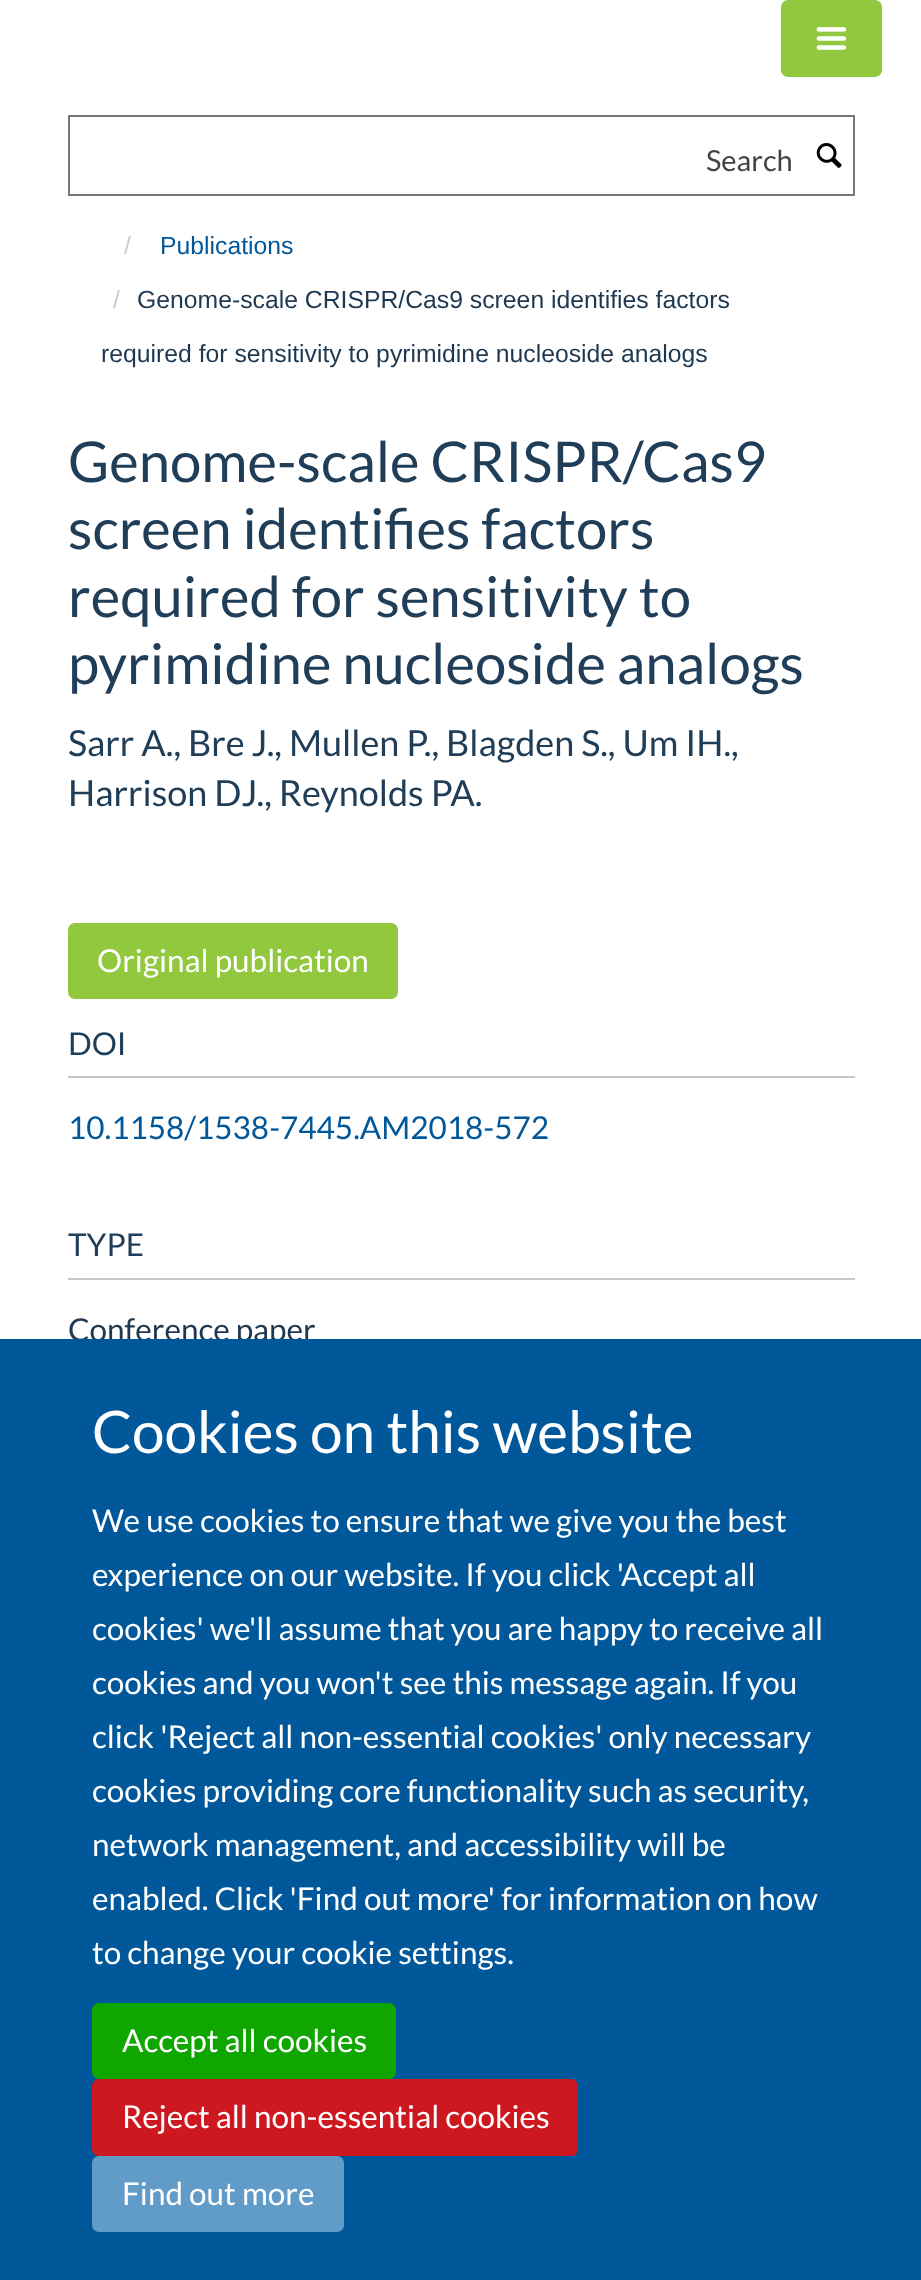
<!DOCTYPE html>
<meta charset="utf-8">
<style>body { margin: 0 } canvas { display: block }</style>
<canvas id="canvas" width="921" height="2280"></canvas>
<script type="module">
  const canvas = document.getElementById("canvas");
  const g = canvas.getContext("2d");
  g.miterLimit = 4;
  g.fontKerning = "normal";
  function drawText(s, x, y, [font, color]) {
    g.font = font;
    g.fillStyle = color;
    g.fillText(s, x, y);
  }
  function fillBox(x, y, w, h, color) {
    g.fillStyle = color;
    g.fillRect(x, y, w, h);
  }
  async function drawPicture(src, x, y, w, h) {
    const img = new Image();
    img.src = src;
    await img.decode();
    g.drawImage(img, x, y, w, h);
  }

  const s1 = ["29px Lato", "#444444"];
  const s2 = ["24.75px Liberation Sans", "#CCCCCC"];
  const s3 = ["24.75px Liberation Sans", "#00589B"];
  const s4 = ["24.75px Liberation Sans", "#1D3850"];
  const s5 = ["56.25px Lato", "#203E58"];
  const s6 = ["36px Lato", "#203E58"];
  const s7 = ["31.5px Lato", "#FFFFFF"];
  const s8 = ["31.5px Lato", "#203E58"];
  const s9 = ["31.5px Lato", "#00589B"];
  const s10 = ["31.5px Lato", "#1D3850"];
  const s11 = ["58.5px Lato", "#FFFFFF"];

  fillBox(0, 0, 921, 2280, "#FFFFFF");
  g.fillStyle = "#92C83E";
  g.beginPath();
  g.roundRect(782, 1, 99, 75, 6);
  g.fill();
  g.strokeStyle = "#92C83E";
  g.lineWidth = 2;
  g.stroke();
  await drawPicture("pic1.png", 816, 27, 31, 23);
  g.strokeStyle = "#777777";
  g.strokeRect(69, 116, 785, 79);
  drawText("Search", 706, 171, s1);
  await drawPicture("pic2.png", 816, 143, 26, 25);
  drawText("/", 124, 254, s2);
  drawText("Publications", 160, 254, s3);
  drawText("/", 113, 308, s2);
  drawText("Genome-scale CRISPR/Cas9 screen identifies factors", 137, 308, s4);
  drawText("required for sensitivity to pyrimidine nucleoside analogs", 101, 362, s4);
  drawText("Genome-scale CRISPR/Cas9", 68, 482, s5);
  drawText("screen identifies factors", 68, 549, s5);
  drawText("required for sensitivity to", 68, 617, s5);
  drawText("pyrimidine nucleoside analogs", 68, 684, s5);
  drawText("Sarr A., Bre J., Mullen P., Blagden S., Um IH.,", 68, 756, s6);
  drawText("Harrison DJ., Reynolds PA.", 68, 806, s6);
  g.fillStyle = "#92C83E";
  g.beginPath();
  g.roundRect(69, 924, 328, 74, 6);
  g.fill();
  g.strokeStyle = "#92C83E";
  g.stroke();
  drawText("Original publication", 97, 972, s7);
  fillBox(68, 1076, 787, 2, "#C6CACF");
  drawText("DOI", 68, 1055, s8);
  drawText("10.1158/1538-7445.AM2018-572", 68, 1139, s9);
  fillBox(68, 1278, 787, 2, "#C6CACF");
  drawText("TYPE", 68, 1256, s8);
  drawText("Conference paper", 68, 1341, s10);
  fillBox(0, 1339, 921, 941, "#00589B");
  drawText("Cookies on this website", 92, 1453, s11);
  drawText("We use cookies to ensure that we give you the best", 92, 1532, s7);
  drawText("experience on our website. If you click 'Accept all", 92, 1586, s7);
  drawText("cookies' we'll assume that you are happy to receive all", 92, 1640, s7);
  drawText("cookies and you won't see this message again. If you", 92, 1694, s7);
  drawText("click 'Reject all non-essential cookies' only necessary", 92, 1748, s7);
  drawText("cookies providing core functionality such as security,", 92, 1802, s7);
  drawText("network management, and accessibility will be", 92, 1856, s7);
  drawText("enabled. Click 'Find out more' for information on how", 92, 1910, s7);
  drawText("to change your cookie settings.", 92, 1964, s7);
  g.fillStyle = "#0FA600";
  g.beginPath();
  g.roundRect(93, 2004, 302, 74, 6);
  g.fill();
  g.strokeStyle = "#0FA600";
  g.stroke();
  drawText("Accept all cookies", 122, 2052, s7);
  g.fillStyle = "#CC181E";
  g.beginPath();
  g.roundRect(93, 2080, 484, 75, 6);
  g.fill();
  g.strokeStyle = "#CC181E";
  g.stroke();
  drawText("Reject all non-essential cookies", 122, 2128, s7);
  g.fillStyle = "#619BC7";
  g.beginPath();
  g.roundRect(93, 2157, 250, 74, 6);
  g.fill();
  g.strokeStyle = "#619BC7";
  g.stroke();
  drawText("Find out more", 122, 2205, s7);
</script>
